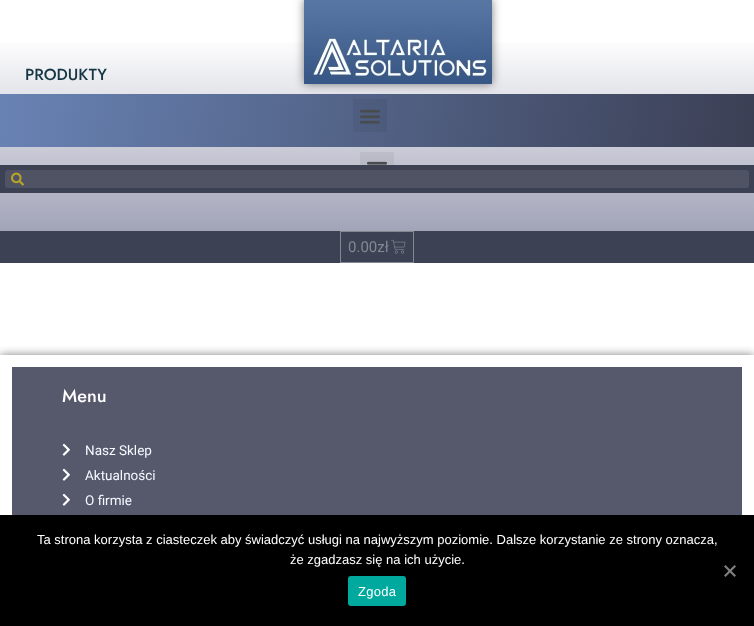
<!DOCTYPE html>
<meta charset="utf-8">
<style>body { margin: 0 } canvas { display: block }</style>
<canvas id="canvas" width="754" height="626"></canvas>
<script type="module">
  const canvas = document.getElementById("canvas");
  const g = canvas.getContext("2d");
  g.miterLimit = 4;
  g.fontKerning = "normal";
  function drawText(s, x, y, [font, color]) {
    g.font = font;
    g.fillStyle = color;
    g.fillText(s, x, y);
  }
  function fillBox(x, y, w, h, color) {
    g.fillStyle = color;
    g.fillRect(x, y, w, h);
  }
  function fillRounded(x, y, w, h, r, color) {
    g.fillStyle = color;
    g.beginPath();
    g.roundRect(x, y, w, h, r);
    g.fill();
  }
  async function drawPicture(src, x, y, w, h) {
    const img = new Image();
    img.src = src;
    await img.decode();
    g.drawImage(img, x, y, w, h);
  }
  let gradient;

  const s1 = ["500 16px Jost", "#153644"];
  const s2 = ["15px Roboto", "#818A91"];
  const s3 = ["500 18px Jost", "#FFFFFF"];
  const s4 = ["13.5px Roboto", "#F5FAFF"];
  const s5 = ["13px Liberation Sans", "#FFFFFF"];

  fillBox(0, 0, 754, 626, "#FFFFFF");
  gradient = g.createLinearGradient(377, 37, 377, 260);
  gradient.addColorStop(0, "#FFFFFF");
  gradient.addColorStop(1, "#9396AD");
  g.fillStyle = gradient;
  g.fillRect(0, 42, 754, 189);
  drawText("PRODUKTY", 25, 80, s1);
  fillBox(360, 152, 34, 13, "rgba(0, 0, 0, 0.05)");
  await drawPicture("pic1.png", 367, 161, 20, 4);
  gradient = g.createLinearGradient(-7.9, 54, 748, 187);
  gradient.addColorStop(0, "#6984B6");
  gradient.addColorStop(1, "#3B3F54");
  g.fillStyle = gradient;
  g.fillRect(0, 94, 754, 53);
  fillBox(353, 99, 34, 33, "rgba(0, 0, 0, 0.05)");
  g.fillStyle = "rgba(0, 0, 0, 0.5)";
  g.filter = "blur(5px)";
  g.beginPath();
  g.rect(304, -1, 188, 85);
  g.fill();
  g.filter = "none";
  await drawPicture("pic2.png", 304, 0, 188, 84);
  await drawPicture("pic3.png", 360, 109, 20, 15);
  fillBox(0, 165, 754, 28, "#3D4154");
  fillRounded(5, 170, 744, 18, 3, "#505364");
  await drawPicture("pic4.png", 11, 172, 13, 14);
  fillBox(0, 231, 754, 32, "#3D4154");
  g.strokeStyle = "#818A91";
  g.strokeRect(340.5, 231.5, 73, 31);
  drawText("0.00zł", 348, 252, s2);
  await drawPicture("pic5.png", 391, 239, 15, 15);
  g.save();
  g.beginPath();
  g.rect(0, 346, 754, 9);
  g.clip();
  g.fillStyle = "rgba(0, 0, 0, 0.5)";
  g.filter = "blur(5px)";
  g.beginPath();
  g.rect(0, 355, 754, 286);
  g.fill();
  g.filter = "none";
  g.restore();
  fillBox(12, 367, 730, 148, "#56586C");
  drawText("Menu", 62, 402, s3);
  await drawPicture("pic6.png", 62, 443, 8, 13);
  drawText("Nasz Sklep", 85, 455, s4);
  await drawPicture("pic6.png", 62, 468, 8, 13);
  drawText("Aktualności", 85, 480, s4);
  await drawPicture("pic6.png", 62, 493, 8, 13);
  drawText("O firmie", 85, 505, s4);
  fillBox(0, 515, 754, 111, "#000000");
  drawText("Ta strona korzysta z ciasteczek aby świadczyć usługi na najwyższym poziomie. Dalsze korzystanie ze strony oznacza,", 37, 544, s5);
  drawText("że zgadzasz się na ich użycie.", 290, 564, s5);
  g.fillStyle = "#808080";
  g.beginPath();
  g.moveTo(734.5, 565);
  g.lineTo(736, 566.5);
  g.lineTo(725.5, 577);
  g.lineTo(724, 575.5);
  g.closePath();
  g.fill();
  g.beginPath();
  g.moveTo(724, 566.5);
  g.lineTo(725.5, 565);
  g.lineTo(736, 575.5);
  g.lineTo(734.5, 577);
  g.closePath();
  g.fill();
  fillRounded(348, 576, 58, 30, 3, "#00A99D");
  g.letterSpacing = "0.25px";
  drawText("Zgoda", 358, 596, s5);
</script>
